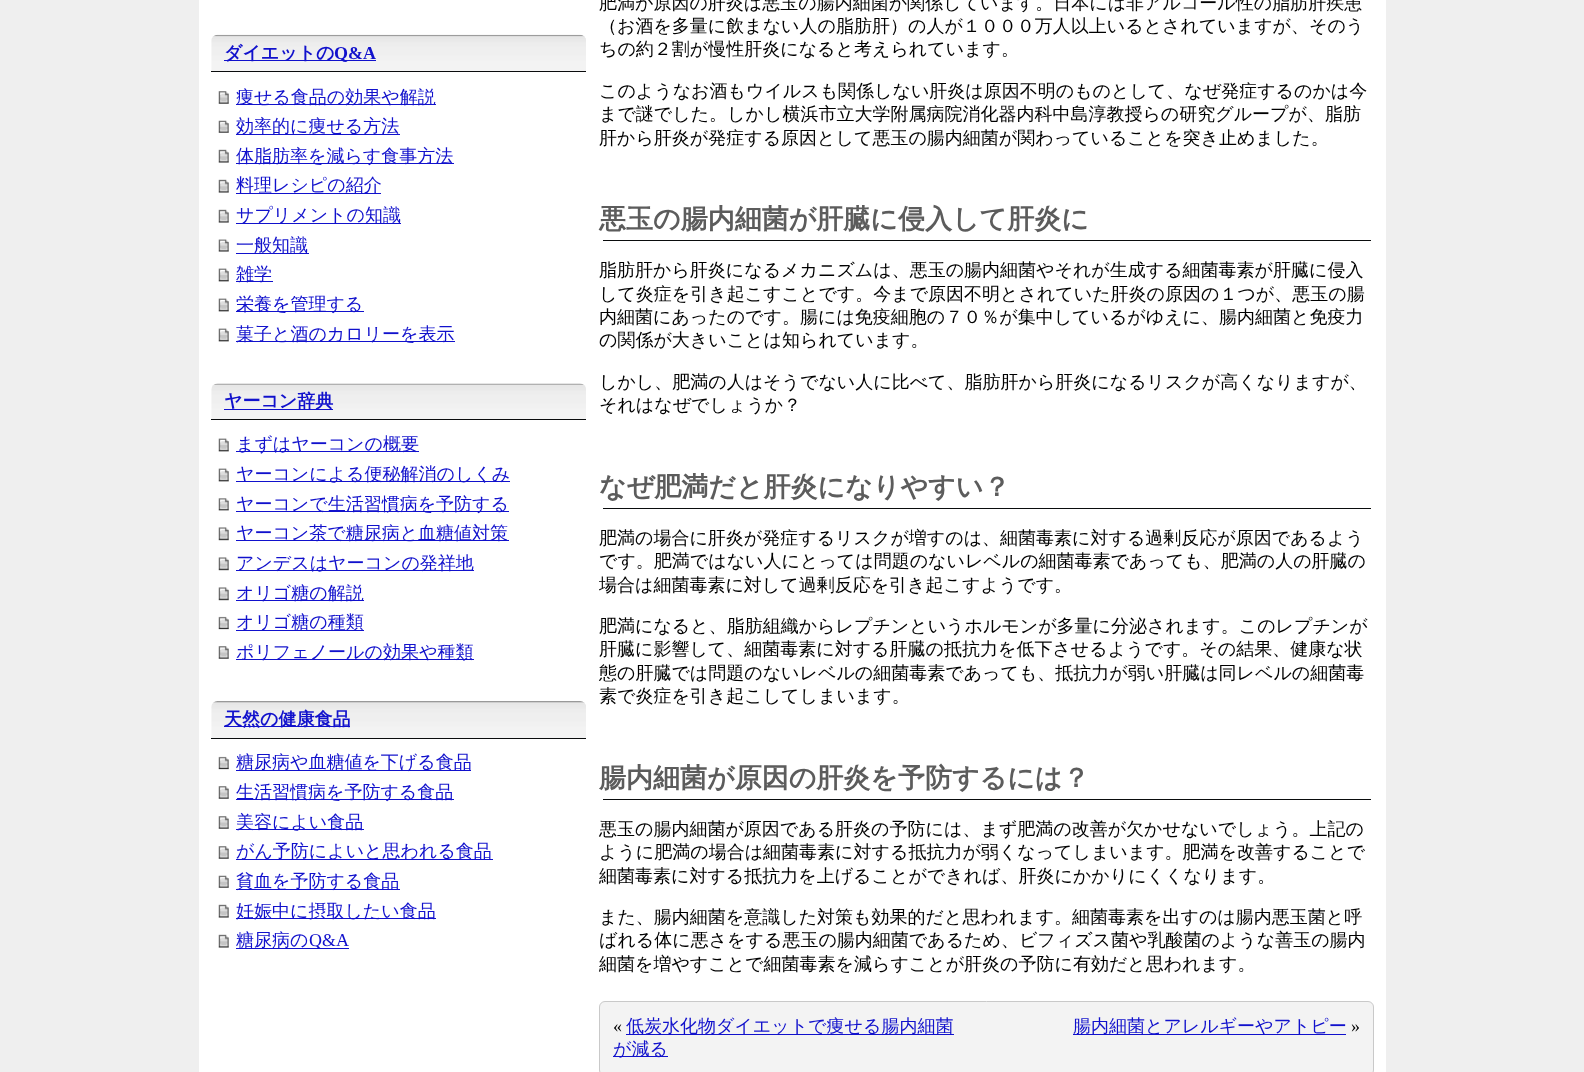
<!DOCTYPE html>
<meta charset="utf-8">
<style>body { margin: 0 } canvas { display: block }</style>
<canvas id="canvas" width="1584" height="1072"></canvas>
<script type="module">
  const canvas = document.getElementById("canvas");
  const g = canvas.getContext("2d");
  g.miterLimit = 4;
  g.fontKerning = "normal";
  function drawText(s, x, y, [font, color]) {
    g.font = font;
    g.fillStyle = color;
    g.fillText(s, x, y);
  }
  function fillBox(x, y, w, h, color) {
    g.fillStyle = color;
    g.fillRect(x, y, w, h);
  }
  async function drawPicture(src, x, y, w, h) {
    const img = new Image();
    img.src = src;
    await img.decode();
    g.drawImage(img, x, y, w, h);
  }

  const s1 = ["bold 18px WenQuanYi Zen Hei", "#1111CC"];
  const s2 = ["bold 18px Liberation Serif", "#1111CC"];
  const s3 = ["500 18px WenQuanYi Zen Hei", "#1111CC"];
  const s4 = ["18px Liberation Serif", "#1111CC"];
  const s5 = ["500 18px WenQuanYi Zen Hei", "#000000"];
  const s6 = ["bold 27px WenQuanYi Zen Hei", "#5C5C5C"];
  const s7 = ["18px Liberation Serif", "#000000"];

  fillBox(0, 0, 1584, 1072, "#EFEFEF");
  fillBox(199, 0, 1187, 1072, "#FFFFFF");
  await drawPicture("pic1.png", 211, 34, 375, 37);
  fillBox(211, 71, 375, 1, "#0A0C0D");
  fillBox(224, 60, 152, 1, "#1111CC");
  drawText("ダイエットの", 224, 59, s1);
  drawText("Q&A", 334, 59, s2);
  await drawPicture("pic2.png", 218, 91, 11, 13);
  fillBox(236, 104, 200, 1, "#1111CC");
  drawText("痩せる食品の効果や解説", 236, 103, s3);
  await drawPicture("pic3.png", 218, 120, 11, 13);
  fillBox(236, 134, 164, 1, "#1111CC");
  drawText("効率的に痩せる方法", 236, 132, s3);
  await drawPicture("pic4.png", 218, 149, 11, 14);
  fillBox(236, 163, 218, 1, "#1111CC");
  drawText("体脂肪率を減らす食事方法", 236, 162, s3);
  await drawPicture("pic4.png", 218, 179, 11, 14);
  fillBox(236, 193, 145, 1, "#1111CC");
  drawText("料理レシピの紹介", 236, 191, s3);
  await drawPicture("pic4.png", 218, 209, 11, 14);
  fillBox(236, 223, 165, 1, "#1111CC");
  drawText("サプリメントの知識", 236, 221, s3);
  await drawPicture("pic5.png", 218, 239, 11, 13);
  fillBox(236, 253, 73, 1, "#1111CC");
  drawText("一般知識", 236, 251, s3);
  await drawPicture("pic6.png", 218, 268, 11, 14);
  fillBox(236, 281, 37, 1, "#1111CC");
  drawText("雑学", 236, 280, s3);
  await drawPicture("pic6.png", 218, 298, 11, 14);
  fillBox(236, 311, 128, 1, "#1111CC");
  drawText("栄養を管理する", 236, 310, s3);
  await drawPicture("pic6.png", 218, 328, 11, 14);
  fillBox(236, 341, 219, 1, "#1111CC");
  drawText("菓子と酒のカロリーを表示", 236, 340, s3);
  await drawPicture("pic7.png", 211, 383, 375, 36);
  fillBox(211, 419, 375, 1, "#0A0C0D");
  fillBox(224, 409, 109, 1, "#1111CC");
  drawText("ヤーコン辞典", 224, 407, s1);
  await drawPicture("pic6.png", 218, 438, 11, 14);
  fillBox(236, 451, 183, 1, "#1111CC");
  drawText("まずはヤーコンの概要", 236, 450, s3);
  await drawPicture("pic6.png", 218, 468, 11, 14);
  fillBox(236, 481, 274, 1, "#1111CC");
  drawText("ヤーコンによる便秘解消のしくみ", 236, 480, s3);
  await drawPicture("pic8.png", 218, 498, 11, 13);
  fillBox(236, 511, 273, 1, "#1111CC");
  drawText("ヤーコンで生活習慣病を予防する", 236, 510, s3);
  await drawPicture("pic9.png", 218, 527, 11, 14);
  fillBox(236, 540, 273, 1, "#1111CC");
  drawText("ヤーコン茶で糖尿病と血糖値対策", 236, 539, s3);
  await drawPicture("pic9.png", 218, 557, 11, 14);
  fillBox(236, 570, 238, 1, "#1111CC");
  drawText("アンデスはヤーコンの発祥地", 236, 569, s3);
  await drawPicture("pic9.png", 218, 587, 11, 14);
  fillBox(236, 600, 128, 1, "#1111CC");
  drawText("オリゴ糖の解説", 236, 599, s3);
  await drawPicture("pic10.png", 218, 616, 11, 14);
  fillBox(236, 630, 128, 1, "#1111CC");
  drawText("オリゴ糖の種類", 236, 628, s3);
  await drawPicture("pic2.png", 218, 646, 11, 13);
  fillBox(236, 659, 238, 1, "#1111CC");
  drawText("ポリフェノールの効果や種類", 236, 658, s3);
  await drawPicture("pic11.png", 211, 701, 375, 37);
  fillBox(211, 738, 375, 1, "#0A0C0D");
  fillBox(224, 726, 126, 1, "#1111CC");
  drawText("天然の健康食品", 224, 725, s1);
  await drawPicture("pic10.png", 218, 756, 11, 14);
  fillBox(236, 770, 235, 1, "#1111CC");
  drawText("糖尿病や血糖値を下げる食品", 236, 768, s3);
  await drawPicture("pic2.png", 218, 786, 11, 13);
  fillBox(236, 799, 218, 1, "#1111CC");
  drawText("生活習慣病を予防する食品", 236, 798, s3);
  await drawPicture("pic2.png", 218, 816, 11, 13);
  fillBox(236, 829, 128, 1, "#1111CC");
  drawText("美容によい食品", 236, 828, s3);
  await drawPicture("pic2.png", 218, 846, 11, 13);
  fillBox(236, 859, 257, 1, "#1111CC");
  drawText("がん予防によいと思われる食品", 236, 857, s3);
  await drawPicture("pic3.png", 218, 875, 11, 13);
  fillBox(236, 889, 164, 1, "#1111CC");
  drawText("貧血を予防する食品", 236, 887, s3);
  await drawPicture("pic4.png", 218, 904, 11, 14);
  fillBox(236, 918, 200, 1, "#1111CC");
  drawText("妊娠中に摂取したい食品", 236, 917, s3);
  await drawPicture("pic4.png", 218, 934, 11, 14);
  fillBox(236, 948, 113, 1, "#1111CC");
  drawText("糖尿病の", 236, 946, s3);
  drawText("Q&A", 309, 946, s4);
  drawText("肥満が原因の肝炎は悪玉の腸内細菌が関係しています。日本には非アルコール性の脂肪肝疾患", 599, 9, s5);
  drawText("（お酒を多量に飲まない人の脂肪肝）の人が１０００万人以上いるとされていますが、そのう", 599, 32, s5);
  drawText("ちの約２割が慢性肝炎になると考えられています。", 599, 55, s5);
  drawText("このようなお酒もウイルスも関係しない肝炎は原因不明のものとして、なぜ発症するのかは今", 599, 97, s5);
  drawText("まで謎でした。しかし横浜市立大学附属病院消化器内科中島淳教授らの研究グループが、脂肪", 599, 120, s5);
  drawText("肝から肝炎が発症する原因として悪玉の腸内細菌が関わっていることを突き止めました。", 599, 144, s5);
  fillBox(603, 240, 768, 1, "#0A0C0D");
  drawText("悪玉の腸内細菌が肝臓に侵入して肝炎に", 599, 228, s6);
  drawText("脂肪肝から肝炎になるメカニズムは、悪玉の腸内細菌やそれが生成する細菌毒素が肝臓に侵入", 599, 276, s5);
  drawText("して炎症を引き起こすことです。今まで原因不明とされていた肝炎の原因の１つが、悪玉の腸", 599, 300, s5);
  drawText("内細菌にあったのです。腸には免疫細胞の７０％が集中しているがゆえに、腸内細菌と免疫力", 599, 323, s5);
  drawText("の関係が大きいことは知られています。", 599, 346, s5);
  drawText("しかし、肥満の人はそうでない人に比べて、脂肪肝から肝炎になるリスクが高くなりますが、", 599, 388, s5);
  drawText("それはなぜでしょうか？", 599, 411, s5);
  fillBox(603, 508, 768, 1, "#0A0C0D");
  drawText("なぜ肥満だと肝炎になりやすい？", 599, 496, s6);
  drawText("肥満の場合に肝炎が発症するリスクが増すのは、細菌毒素に対する過剰反応が原因であるよう", 599, 544, s5);
  drawText("です。肥満ではない人にとっては問題のないレベルの細菌毒素であっても、肥満の人の肝臓の", 599, 567, s5);
  drawText("場合は細菌毒素に対して過剰反応を引き起こすようです。", 599, 591, s5);
  drawText("肥満になると、脂肪組織からレプチンというホルモンが多量に分泌されます。このレプチンが", 599, 632, s5);
  drawText("肝臓に影響して、細菌毒素に対する肝臓の抵抗力を低下させるようです。その結果、健康な状", 599, 655, s5);
  drawText("態の肝臓では問題のないレベルの細菌毒素であっても、抵抗力が弱い肝臓は同レベルの細菌毒", 599, 679, s5);
  drawText("素で炎症を引き起こしてしまいます。", 599, 702, s5);
  fillBox(603, 799, 768, 1, "#0A0C0D");
  drawText("腸内細菌が原因の肝炎を予防するには？", 599, 787, s6);
  drawText("悪玉の腸内細菌が原因である肝炎の予防には、まず肥満の改善が欠かせないでしょう。上記の", 599, 835, s5);
  drawText("ように肥満の場合は細菌毒素に対する抵抗力が弱くなってしまいます。肥満を改善することで", 599, 858, s5);
  drawText("細菌毒素に対する抵抗力を上げることができれば、肝炎にかかりにくくなります。", 599, 882, s5);
  drawText("また、腸内細菌を意識した対策も効果的だと思われます。細菌毒素を出すのは腸内悪玉菌と呼", 599, 923, s5);
  drawText("ばれる体に悪さをする悪玉の腸内細菌であるため、ビフィズス菌や乳酸菌のような善玉の腸内", 599, 946, s5);
  drawText("細菌を増やすことで細菌毒素を減らすことが肝炎の予防に有効だと思われます。", 599, 970, s5);
  g.fillStyle = "#F3F3F3";
  g.beginPath();
  g.roundRect(599.5, 1001.5, 774, 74, 5.5);
  g.fill();
  g.strokeStyle = "#C9C9C9";
  g.stroke();
  drawText("«", 613, 1032, s7);
  fillBox(626, 1034, 328, 1, "#1111CC");
  drawText("低炭水化物ダイエットで痩せる腸内細菌", 626, 1032, s3);
  fillBox(613, 1056, 55, 1, "#1111CC");
  drawText("が減る", 613, 1055, s3);
  fillBox(1073, 1034, 273, 1, "#1111CC");
  drawText("腸内細菌とアレルギーやアトピー", 1073, 1032, s3);
  drawText("»", 1351, 1032, s7);
</script>
